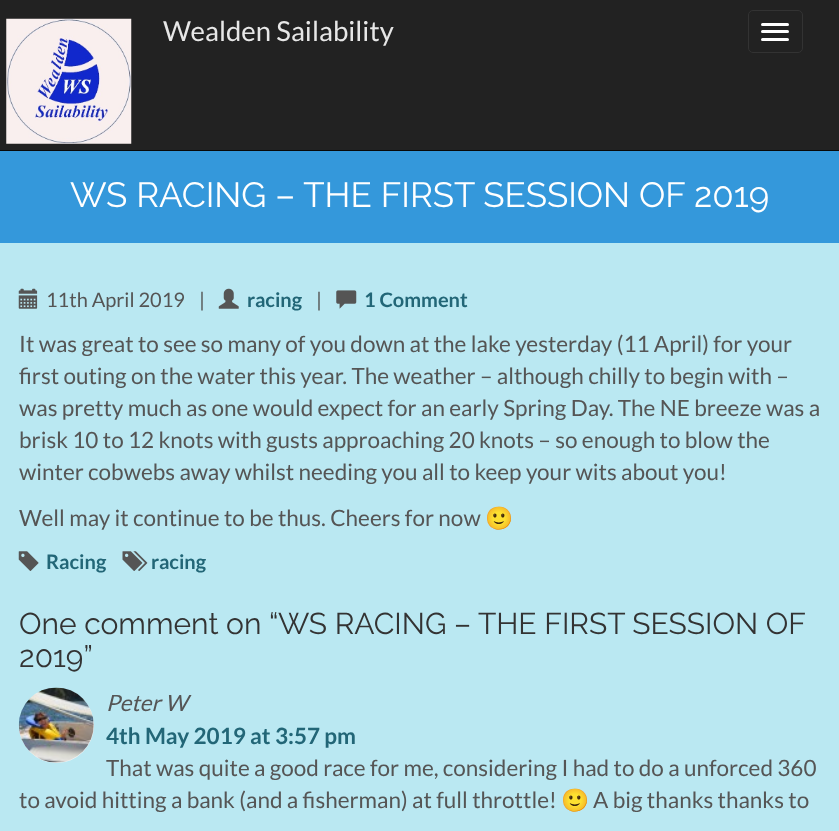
<!DOCTYPE html>
<meta charset="utf-8">
<style>body { margin: 0 } canvas { display: block }</style>
<canvas id="canvas" width="839" height="831"></canvas>
<script type="module">
  const canvas = document.getElementById("canvas");
  const g = canvas.getContext("2d");
  g.miterLimit = 4;
  g.fontKerning = "normal";
  function drawText(s, x, y, [font, color]) {
    g.font = font;
    g.fillStyle = color;
    g.fillText(s, x, y);
  }
  function fillBox(x, y, w, h, color) {
    g.fillStyle = color;
    g.fillRect(x, y, w, h);
  }
  function fillRounded(x, y, w, h, r, color) {
    g.fillStyle = color;
    g.beginPath();
    g.roundRect(x, y, w, h, r);
    g.fill();
  }
  async function drawPicture(src, x, y, w, h) {
    const img = new Image();
    img.src = src;
    await img.decode();
    g.drawImage(img, x, y, w, h);
  }

  const s1 = ["27.5px Lato", "#E7E7E7"];
  const s2 = ["35px Raleway", "#FFFFFF"];
  const s3 = ["20px Lato", "#555555"];
  const s4 = ["bold 20px Lato", "#226677"];
  const s5 = ["22.5px Lato", "#555555"];
  const s6 = ["22.5px Noto Color Emoji", "#555555"];
  const s7 = ["30px Raleway", "#333333"];
  const s8 = ["italic 22.5px Lato", "#555555"];
  const s9 = ["bold 22.5px Lato", "#226677"];

  fillBox(0, 0, 839, 831, "#BAE8F2");
  fillBox(0, 0, 839, 150, "#222222");
  await drawPicture("pic1.png", 6, 18, 126, 126);
  fillBox(0, 150, 839, 1, "#080808");
  drawText("Wealden Sailability", 163, 41, s1);
  g.beginPath();
  g.roundRect(748.5, 10.5, 54, 42, 4.5);
  g.strokeStyle = "#333333";
  g.stroke();
  fillRounded(761, 23, 28, 3, 1.5, "#FFFFFF");
  fillRounded(761, 30, 28, 3, 1.5, "#FFFFFF");
  fillRounded(761, 38, 28, 3, 1.5, "#FFFFFF");
  fillBox(0, 151, 839, 92, "#3498DB");
  drawText("WS RACING – THE FIRST SESSION OF 2019", 70, 207, s2);
  await drawPicture("pic2.png", 18, 288, 20, 21);
  drawText("11th April 2019", 46, 307, s3);
  drawText("|", 199, 307, s3);
  await drawPicture("pic3.png", 218, 288, 21, 21);
  drawText("racing", 247, 307, s4);
  drawText("|", 316, 307, s3);
  await drawPicture("pic4.png", 336, 290, 21, 19);
  drawText("1 Comment", 364, 307, s4);
  drawText("It was great to see so many of you down at the lake yesterday (11 April) for your", 19, 352, s5);
  drawText("first outing on the water this year. The weather – although chilly to begin with –", 19, 384, s5);
  drawText("was pretty much as one would expect for an early Spring Day. The NE breeze was a", 19, 416, s5);
  drawText("brisk 10 to 12 knots with gusts approaching 20 knots – so enough to blow the", 19, 448, s5);
  drawText("winter cobwebs away whilst needing you all to keep your wits about you!", 19, 480, s5);
  drawText("Well may it continue to be thus. Cheers for now", 19, 526, s5);
  drawText("🙂", 485, 526, s6);
  await drawPicture("pic5.png", 18, 551, 21, 20);
  drawText("Racing", 46, 569, s4);
  await drawPicture("pic6.png", 122, 551, 26, 20);
  drawText("racing", 151, 569, s4);
  drawText("One comment on “", 19, 634, s7);
  drawText("WS RACING – THE FIRST SESSION OF", 278, 634, s7);
  drawText("2019”", 19, 667, s7);
  g.fillStyle = "#F2F2F2";
  g.beginPath();
  g.arc(56.5, 725.5, 37.5, 0, Math.PI * 2);
  g.fill();
  await drawPicture("pic7.png", 18, 687, 76, 76);
  drawText("Peter W", 106, 711, s8);
  drawText("4th May 2019 at 3:57 pm", 106, 744, s9);
  drawText("That was quite a good race for me, considering I had to do a unforced 360", 106, 776, s5);
  drawText("to avoid hitting a bank (and a fisherman) at full throttle!", 19, 808, s5);
  drawText("🙂", 561, 808, s6);
  drawText("A big thanks thanks to", 593, 808, s5);
</script>
